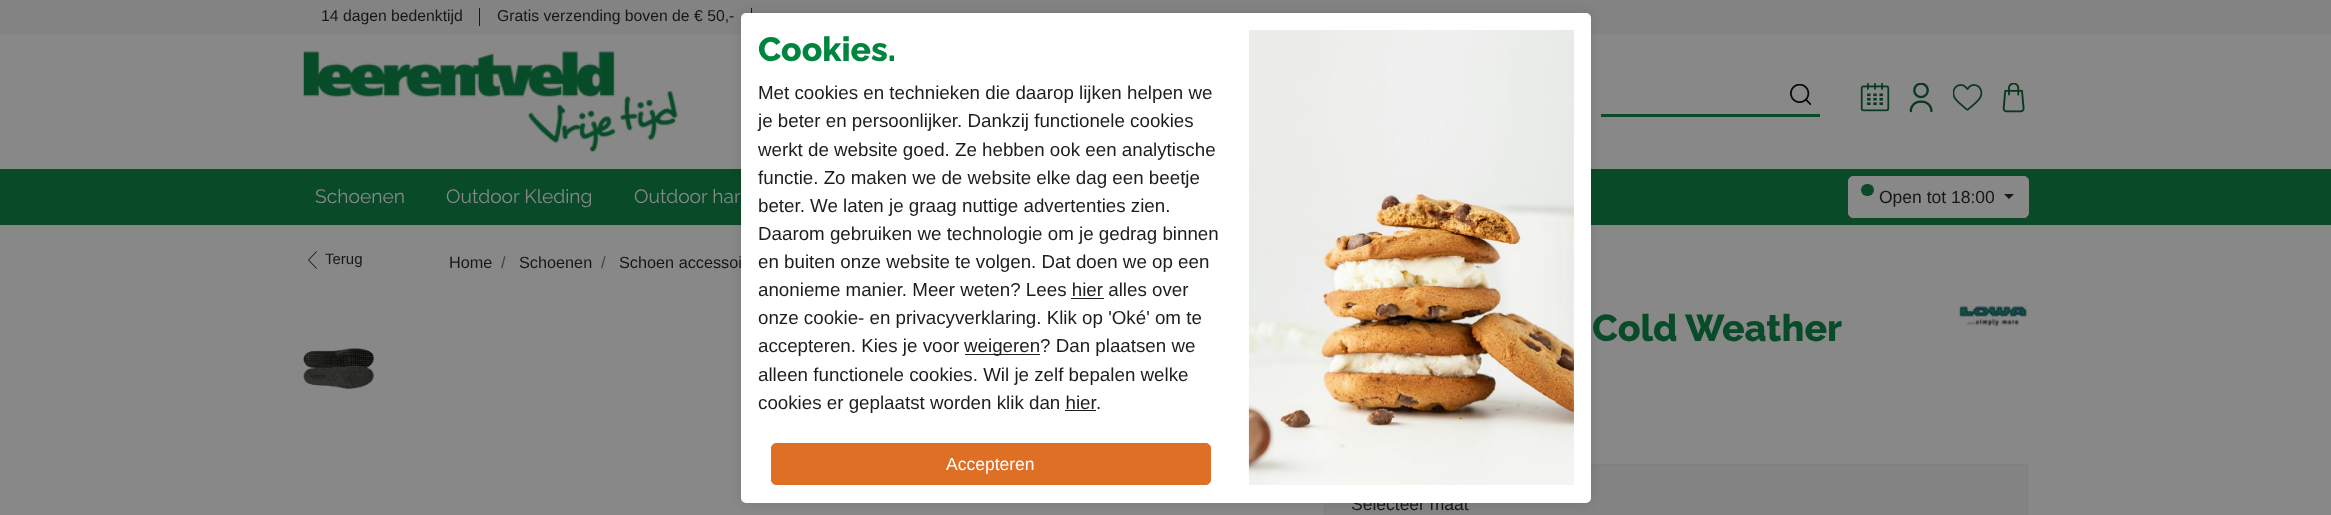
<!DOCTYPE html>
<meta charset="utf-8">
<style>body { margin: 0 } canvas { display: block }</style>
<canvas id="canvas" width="2331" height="515"></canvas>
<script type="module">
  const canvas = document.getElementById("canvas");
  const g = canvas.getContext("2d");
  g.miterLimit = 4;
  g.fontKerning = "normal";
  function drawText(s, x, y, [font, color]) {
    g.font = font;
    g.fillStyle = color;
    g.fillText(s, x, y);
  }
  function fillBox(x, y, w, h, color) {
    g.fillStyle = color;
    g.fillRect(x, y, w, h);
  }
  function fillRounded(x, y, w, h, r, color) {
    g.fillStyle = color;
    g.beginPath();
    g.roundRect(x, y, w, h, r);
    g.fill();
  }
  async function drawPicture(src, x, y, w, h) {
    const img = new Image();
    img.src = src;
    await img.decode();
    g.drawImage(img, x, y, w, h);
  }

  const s1 = ["15.75px Arimo", "#171716"];
  const s2 = ["19.25px Raleway", "#888888"];
  const s3 = ["17.5px Arimo", "#171716"];
  const s4 = ["800 33.75px Raleway", "#00853E"];
  const s5 = ["18.75px Arimo", "#1D1D1B"];
  const s6 = ["17.5px Arimo", "#FFFFFF"];
  const s7 = ["15px Arimo", "#171716"];
  const s8 = ["16.25px Arimo", "#171716"];
  const s9 = ["16.25px Arimo", "#3F4347"];
  const s10 = ["800 37.5px Raleway", "#094B28"];

  fillBox(0, 0, 2331, 515, "#888888");
  fillBox(0, 0, 2331, 34, "#838383");
  drawText("14 dagen bedenktijd", 321, 21, s1);
  fillBox(479, 8, 1, 18, "#171716");
  drawText("Gratis verzending boven de € 50,-", 497, 21, s1);
  fillBox(751, 8, 1, 5, "#171716");
  await drawPicture("pic1.png", 303, 51, 375, 101);
  fillBox(1776, 74, 44, 1, "#858586");
  await drawPicture("pic2.png", 1790, 84, 21, 21);
  fillBox(1601, 114, 219, 3, "#094B28");
  await drawPicture("pic3.png", 1860, 83, 30, 29);
  await drawPicture("pic4.png", 1909, 83, 24, 30);
  await drawPicture("pic5.png", 1953, 84, 30, 27);
  await drawPicture("pic6.png", 2002, 83, 23, 30);
  fillBox(0, 169, 2331, 56, "#094B28");
  drawText("Schoenen", 315, 203, s2);
  drawText("Outdoor Kleding", 446, 203, s2);
  drawText("Outdoor har", 634, 203, s2);
  g.beginPath();
  g.roundRect(1848.5, 176.5, 180, 41, 4.5);
  g.fill();
  g.strokeStyle = "#888888";
  g.stroke();
  fillRounded(1861, 184, 13, 12, 6, "#094B28");
  drawText("Open tot 18:00", 1879, 203, s3);
  g.beginPath();
  g.moveTo(2004, 194);
  g.lineTo(2014, 194);
  g.lineTo(2009, 199);
  g.closePath();
  g.fill();
  g.fillStyle = "#838383";
  g.beginPath();
  g.rect(1324.5, 464.5, 703, 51);
  g.fill();
  g.strokeStyle = "#7F7F7F";
  g.stroke();
  g.fillStyle = "rgba(0, 0, 0, 0.1)";
  g.filter = "blur(5.5px)";
  g.beginPath();
  g.roundRect(741, 13, 850, 490, 5);
  g.fill();
  g.filter = "none";
  drawText("Selecteer maat", 1351, 510, s3);
  fillRounded(741, 13, 850, 490, 5, "#FFFFFF");
  drawText("Cookies.", 758, 61, s4);
  drawText("Met cookies en technieken die daarop lijken helpen we", 758, 99, s5);
  drawText("je beter en persoonlijker. Dankzij functionele cookies", 758, 127, s5);
  drawText("werkt de website goed. Ze hebben ook een analytische", 758, 156, s5);
  drawText("functie. Zo maken we de website elke dag een beetje", 758, 184, s5);
  drawText("beter. We laten je graag nuttige advertenties zien.", 758, 212, s5);
  drawText("Daarom gebruiken we technologie om je gedrag binnen", 758, 240, s5);
  drawText("en buiten onze website te volgen. Dat doen we op een", 758, 268, s5);
  drawText("anonieme manier. Meer weten? Lees hier alles over", 758, 296, s5);
  fillBox(1071, 298, 33, 1, "#1D1D1B");
  drawText("onze cookie- en privacyverklaring. Klik op 'Oké' om te", 758, 324, s5);
  drawText("accepteren. Kies je voor", 758, 352, s5);
  fillBox(965, 354, 75, 1, "#1D1D1B");
  drawText("weigeren? Dan plaatsen we", 964, 352, s5);
  drawText("alleen functionele cookies. Wil je zelf bepalen welke", 758, 381, s5);
  drawText("cookies er geplaatst worden klik dan hier", 758, 409, s5);
  drawText(".", 1096, 409, s5);
  fillBox(1065, 410, 31, 1, "#1D1D1B");
  g.fillStyle = "#DE6F25";
  g.beginPath();
  g.roundRect(771.5, 443.5, 439, 41, 4.5);
  g.fill();
  g.strokeStyle = "#DE6F25";
  g.stroke();
  drawText("Accepteren", 946, 470, s6);
  await drawPicture("pic7.png", 1248, 30, 326, 455);
  await drawPicture("pic8.png", 308, 251, 9, 18);
  drawText("Terug", 325, 264, s7);
  drawText("Home", 449, 268, s8);
  drawText("/", 501, 268, s9);
  drawText("Schoenen", 519, 268, s8);
  drawText("/", 601, 268, s9);
  drawText("Schoen accessoi", 619, 268, s8);
  await drawPicture("pic9.png", 303, 348, 72, 41);
  drawText("Cold Weather", 1592, 341, s10);
  await drawPicture("pic10.png", 1958, 306, 70, 21);
</script>
